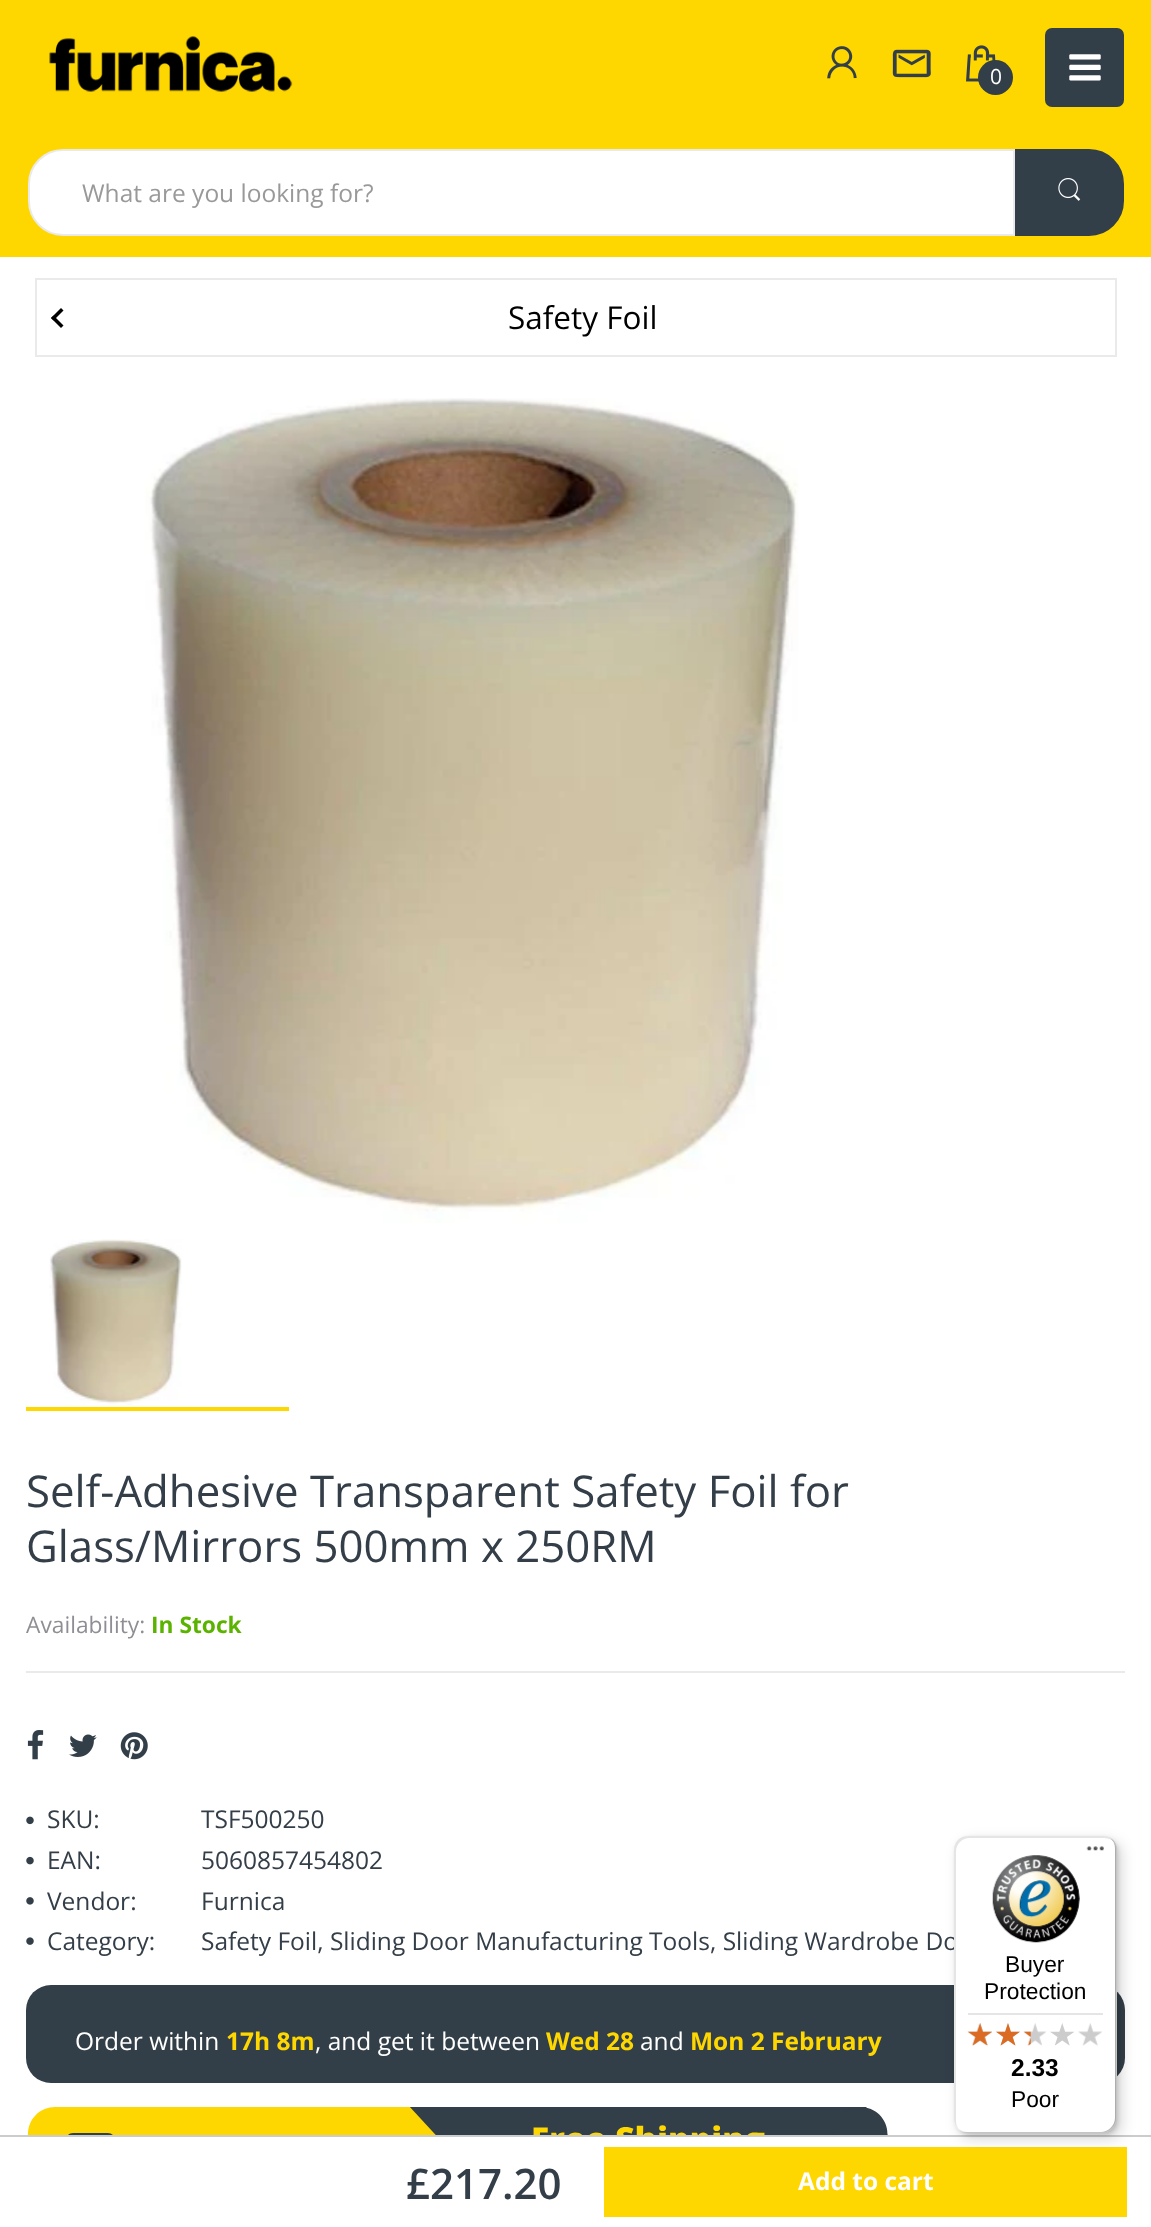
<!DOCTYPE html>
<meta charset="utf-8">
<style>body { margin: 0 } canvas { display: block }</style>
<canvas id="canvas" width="1151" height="2227"></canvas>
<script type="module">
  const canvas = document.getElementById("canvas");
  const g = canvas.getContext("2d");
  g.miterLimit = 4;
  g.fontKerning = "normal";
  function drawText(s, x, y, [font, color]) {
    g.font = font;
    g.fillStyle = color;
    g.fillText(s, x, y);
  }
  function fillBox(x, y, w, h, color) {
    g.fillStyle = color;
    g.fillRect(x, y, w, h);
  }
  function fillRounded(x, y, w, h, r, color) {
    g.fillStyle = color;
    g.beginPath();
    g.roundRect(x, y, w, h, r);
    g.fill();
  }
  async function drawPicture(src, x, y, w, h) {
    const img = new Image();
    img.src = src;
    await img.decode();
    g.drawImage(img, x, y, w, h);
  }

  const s1 = ["21px Open Sans", "#FFFFFF"];
  const s2 = ["24.5px Open Sans", "#999999"];
  const s3 = ["31.5px Open Sans", "#000000"];
  const s4 = ["43.75px Open Sans", "#333E48"];
  const s5 = ["22.75px Open Sans", "#8F8E94"];
  const s6 = ["bold 22.75px Open Sans", "#5BB300"];
  const s7 = ["24.5px Open Sans", "#333E48"];
  const s8 = ["24.5px Open Sans", "#FFFFFF"];
  const s9 = ["bold 24.5px Open Sans", "#FFD700"];
  const s10 = ["600 42px Open Sans", "#333E48"];
  const s11 = ["bold 24.5px Open Sans", "#FFFFFF"];
  const s12 = ["22.75px Liberation Sans", "#000000"];
  const s13 = ["bold 24.5px Liberation Sans", "#000000"];

  fillBox(0, 0, 1151, 2227, "#FFFFFF");
  fillBox(0, 0, 1151, 257, "#FFD700");
  await drawPicture("pic1.png", 49, 36, 244, 56);
  await drawPicture("pic2.png", 827, 46, 30, 33);
  await drawPicture("pic3.png", 892, 49, 39, 29);
  await drawPicture("pic4.png", 966, 45, 30, 37);
  g.fillStyle = "#333F48";
  g.beginPath();
  g.arc(995.5, 77.5, 17.5, 0, Math.PI * 2);
  g.fill();
  drawText("0", 990, 84, s1);
  fillRounded(1045, 28, 79, 79, 7, "#333F48");
  await drawPicture("pic5.png", 1069, 54, 32, 27);
  g.fillStyle = "#FFFFFF";
  g.beginPath();
  g.roundRect(29, 150, 985, 85, [34, 0, 0, 34]);
  g.fill();
  g.strokeStyle = "#EAEAEA";
  g.lineWidth = 2;
  g.stroke();
  drawText("What are you looking for?", 82, 202, s2);
  g.fillStyle = "#333F48";
  g.beginPath();
  g.roundRect(1016, 150, 107, 85, [0, 34, 34, 0]);
  g.fill();
  g.strokeStyle = "#333F48";
  g.stroke();
  await drawPicture("pic6.png", 1058, 178, 23, 23);
  g.strokeStyle = "#EAEAEA";
  g.strokeRect(36, 279, 1080, 77);
  g.fillStyle = "#000000";
  g.beginPath();
  g.moveTo(63.5, 325.5);
  g.lineTo(61, 328);
  g.lineTo(51, 318);
  g.lineTo(53.5, 315.5);
  g.closePath();
  g.fill();
  g.beginPath();
  g.moveTo(63.5, 310.5);
  g.lineTo(53.5, 320.5);
  g.lineTo(51, 318);
  g.lineTo(61, 308);
  g.closePath();
  g.fill();
  drawText("Safety Foil", 508, 329, s3);
  await drawPicture("pic7.png", 145, 398, 654, 825);
  fillBox(26, 1407, 263, 4, "#FFD700");
  await drawPicture("pic8.png", 49, 1239, 133, 166);
  drawText("Self-Adhesive Transparent Safety Foil for", 26, 1507, s4);
  drawText("Glass/Mirrors 500mm x 250RM", 26, 1562, s4);
  fillBox(26, 1671, 1099, 2, "#EAEAEA");
  drawText("Availability:", 26, 1633, s5);
  drawText("In Stock", 151, 1633, s6);
  await drawPicture("pic9.png", 27, 1730, 17, 30);
  await drawPicture("pic10.png", 69, 1734, 28, 23);
  await drawPicture("pic11.png", 120, 1732, 28, 28);
  await drawPicture("pic12.png", 26, 1816, 8, 9);
  drawText("SKU:", 47, 1828, s7);
  drawText("TSF500250", 201, 1828, s7);
  await drawPicture("pic13.png", 26, 1856, 8, 9);
  drawText("EAN:", 47, 1869, s7);
  drawText("5060857454802", 201, 1869, s7);
  await drawPicture("pic14.png", 26, 1897, 8, 8);
  drawText("Vendor:", 47, 1910, s7);
  drawText("Furnica", 201, 1910, s7);
  await drawPicture("pic15.png", 26, 1937, 8, 8);
  drawText("Category:", 47, 1950, s7);
  drawText("Safety Foil, Sliding Door Manufacturing Tools, Sliding Wardrobe Do", 201, 1950, s7);
  fillRounded(26, 1985, 1099, 98, 25, "#333F48");
  drawText("Order within", 75, 2050, s8);
  drawText("17h 8m", 226, 2050, s9);
  drawText(", and get it between", 315, 2050, s8);
  drawText("Wed 28", 546, 2050, s9);
  drawText("and", 640, 2050, s8);
  drawText("Mon 2 February", 690, 2050, s9);
  await drawPicture("pic16.png", 27, 2107, 861, 28);
  fillBox(0, 2135, 1151, 2, "#CCCCCC");
  drawText("£217.20", 406, 2199, s10);
  fillBox(604, 2147, 523, 70, "#FFD700");
  drawText("Add to cart", 798, 2190, s11);
  g.fillStyle = "rgba(0, 0, 0, 0.15)";
  g.filter = "blur(7px)";
  g.beginPath();
  g.roundRect(959, 1841, 163, 298, 14);
  g.fill();
  g.filter = "none";
  g.filter = "blur(2px)";
  g.beginPath();
  g.roundRect(956, 1838, 162, 297, 14);
  g.fill();
  g.filter = "none";
  fillRounded(954, 1836, 163, 297, 14, "#FFFFFF");
  g.fillStyle = "rgba(0, 0, 0, 0.1)";
  g.beginPath();
  g.moveTo(970, 1838);
  g.lineTo(1104, 1838);
  g.bezierCurveTo(1109, 1838, 1113, 1840, 1116, 1844);
  g.bezierCurveTo(1113, 1839, 1109, 1836, 1103, 1836);
  g.lineTo(968, 1836);
  g.bezierCurveTo(960, 1836, 954, 1842, 954, 1850);
  g.lineTo(954, 2119);
  g.bezierCurveTo(954, 2123, 956, 2127, 959, 2129);
  g.bezierCurveTo(957, 2127, 956, 2124, 956, 2121);
  g.lineTo(956, 1852);
  g.bezierCurveTo(956, 1844, 962, 1838, 970, 1838);
  g.closePath();
  g.fill();
  g.fillStyle = "rgba(0, 0, 0, 0.2)";
  g.beginPath();
  g.moveTo(961, 2131);
  g.bezierCurveTo(963, 2132, 965, 2133, 968, 2133);
  g.lineTo(1103, 2133);
  g.bezierCurveTo(1111, 2133, 1117, 2127, 1117, 2119);
  g.lineTo(1117, 1850);
  g.bezierCurveTo(1117, 1845, 1115, 1841, 1111, 1839);
  g.bezierCurveTo(1114, 1841, 1115, 1844, 1115, 1848);
  g.lineTo(1115, 2118);
  g.bezierCurveTo(1115, 2125, 1108, 2132, 1101, 2132);
  g.lineTo(966, 2132);
  g.bezierCurveTo(964, 2132, 962, 2132, 961, 2131);
  g.closePath();
  g.fill();
  g.fillStyle = "rgba(50, 50, 50, 0.2)";
  g.beginPath();
  g.moveTo(959, 2129);
  g.bezierCurveTo(961, 2132, 964, 2133, 968, 2133);
  g.lineTo(1103, 2133);
  g.bezierCurveTo(1111, 2133, 1117, 2127, 1117, 2119);
  g.lineTo(1117, 1850);
  g.bezierCurveTo(1117, 1844, 1114, 1840, 1109, 1837);
  g.bezierCurveTo(1113, 1840, 1115, 1844, 1115, 1849);
  g.lineTo(1115, 2118);
  g.bezierCurveTo(1115, 2126, 1109, 2132, 1101, 2132);
  g.lineTo(967, 2132);
  g.bezierCurveTo(964, 2132, 961, 2131, 959, 2129);
  g.closePath();
  g.fill();
  g.fillStyle = "rgba(255, 255, 255, 0.3)";
  g.beginPath();
  g.moveTo(959, 2129);
  g.bezierCurveTo(961, 2132, 964, 2133, 968, 2133);
  g.lineTo(1103, 2133);
  g.bezierCurveTo(1111, 2133, 1117, 2127, 1117, 2119);
  g.lineTo(1117, 1850);
  g.bezierCurveTo(1117, 1845, 1115, 1841, 1111, 1839);
  g.bezierCurveTo(1114, 1841, 1116, 1845, 1116, 1849);
  g.lineTo(1116, 2118);
  g.bezierCurveTo(1116, 2126, 1109, 2132, 1102, 2132);
  g.lineTo(967, 2132);
  g.bezierCurveTo(964, 2132, 961, 2131, 959, 2129);
  g.closePath();
  g.fill();
  await drawPicture("pic17.png", 1086, 1846, 18, 5);
  await drawPicture("pic18.png", 992, 1855, 88, 88);
  drawText("Buyer", 1005, 1972, s12);
  drawText("Protection", 984, 1999, s12);
  fillBox(968, 2013, 135, 2, "#E5E5E5");
  await drawPicture("pic22.png", 968, 2023, 24, 23);
  await drawPicture("pic19.png", 967, 2023, 25, 23);
  await drawPicture("pic23.png", 996, 2023, 24, 23);
  await drawPicture("pic20.png", 996, 2023, 24, 23);
  await drawPicture("pic24.png", 1024, 2023, 22, 23);
  await drawPicture("pic21.png", 1023, 2031, 8, 15);
  await drawPicture("pic25.png", 1050, 2023, 24, 23);
  await drawPicture("pic26.png", 1078, 2023, 24, 23);
  drawText("2.33", 1011, 2076, s13);
  drawText("Poor", 1011, 2107, s12);
</script>
